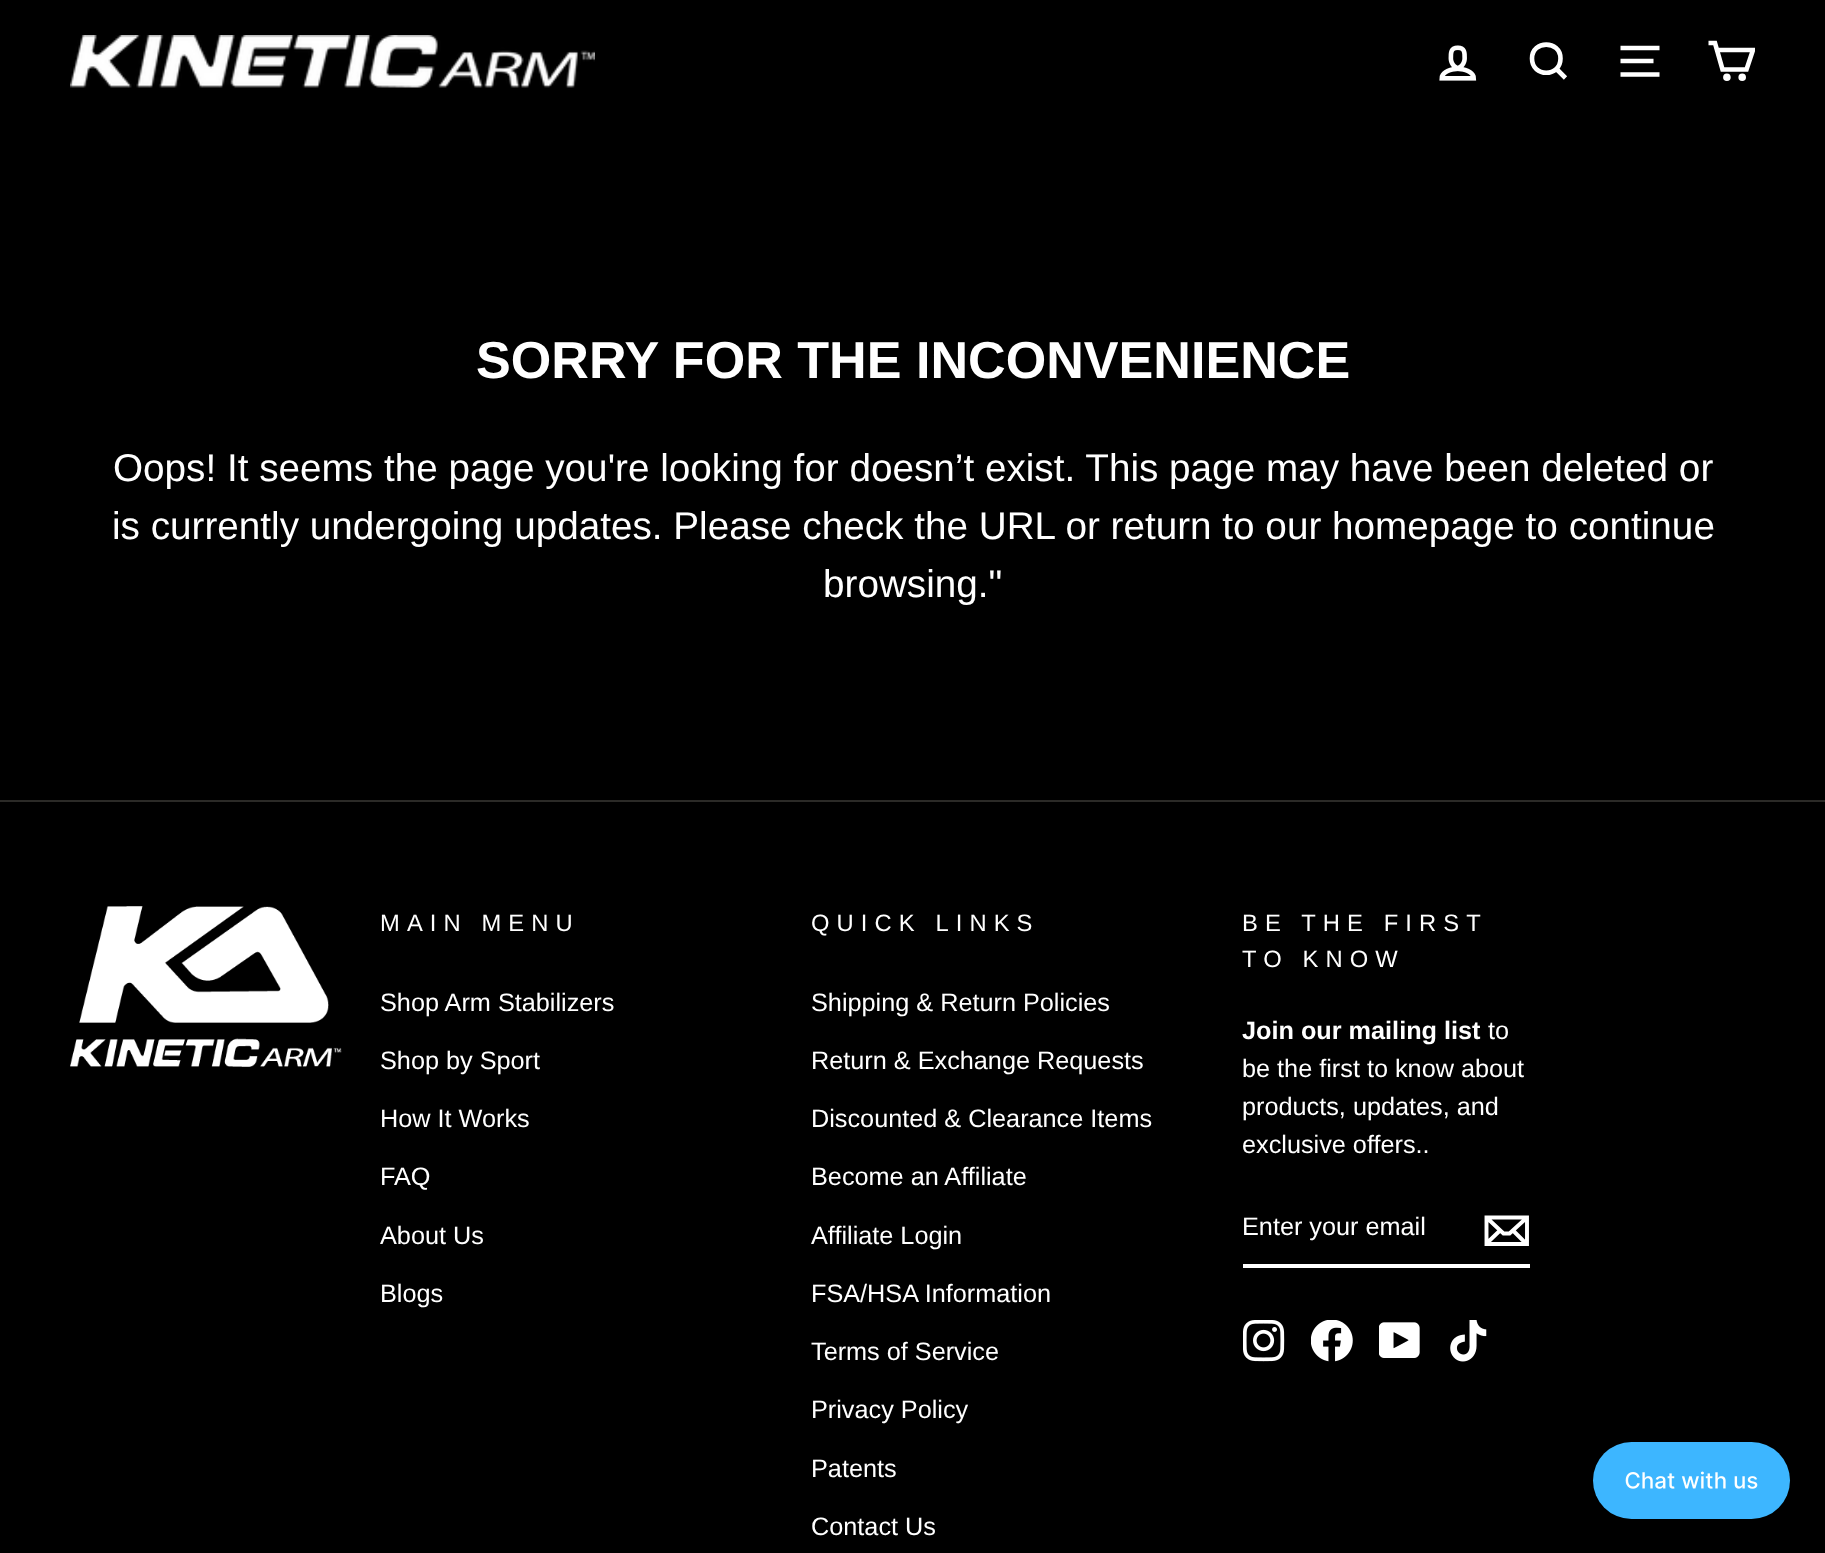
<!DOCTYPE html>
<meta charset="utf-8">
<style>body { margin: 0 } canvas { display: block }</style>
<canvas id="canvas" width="1825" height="1553"></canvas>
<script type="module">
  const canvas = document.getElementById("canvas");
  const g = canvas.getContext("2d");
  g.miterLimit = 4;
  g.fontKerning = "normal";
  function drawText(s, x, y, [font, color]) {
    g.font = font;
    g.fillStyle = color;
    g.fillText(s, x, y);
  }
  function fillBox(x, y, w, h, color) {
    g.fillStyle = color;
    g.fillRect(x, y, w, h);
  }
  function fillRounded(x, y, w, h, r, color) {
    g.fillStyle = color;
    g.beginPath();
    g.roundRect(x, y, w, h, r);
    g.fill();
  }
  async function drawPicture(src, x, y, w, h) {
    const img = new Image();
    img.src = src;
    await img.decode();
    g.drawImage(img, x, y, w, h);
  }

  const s1 = ["bold 52.1px Liberation Sans", "#FFFFFF"];
  const s2 = ["38.7px Liberation Sans", "#FFFFFF"];
  const s3 = ["23.75px Liberation Sans", "#FFFFFF"];
  const s4 = ["25.25px Liberation Sans", "#FFFFFF"];
  const s5 = ["bold 25.25px Liberation Sans", "#FFFFFF"];

  fillBox(0, 0, 1825, 1553, "#000000");
  await drawPicture("pic1.png", 70, 35, 525, 53);
  await drawPicture("pic2.png", 1439, 45, 38, 36);
  g.beginPath();
  g.moveTo(1560.5, 58.5);
  g.bezierCurveTo(1560.5, 77.5, 1532, 77.5, 1532, 58.5);
  g.bezierCurveTo(1532, 40, 1560.5, 40, 1560.5, 58.5);
  g.closePath();
  g.moveTo(1565.5, 78);
  g.lineTo(1556.5, 69);
  g.strokeStyle = "#FFFFFF";
  g.lineWidth = 4.6;
  g.stroke();
  g.beginPath();
  g.moveTo(1620.5, 48);
  g.lineTo(1659.5, 48);
  g.moveTo(1620.5, 61);
  g.lineTo(1653.5, 61);
  g.moveTo(1620.5, 74.5);
  g.lineTo(1659.5, 74.5);
  g.stroke();
  g.save();
  g.beginPath();
  g.rect(1706, 37, 49, 49);
  g.clip();
  g.beginPath();
  g.moveTo(1717, 50);
  g.lineTo(1753, 50);
  g.lineTo(1746.5, 69.5);
  g.lineTo(1722.5, 69.5);
  g.lineTo(1715, 43);
  g.lineTo(1708.5, 43);
  g.stroke();
  g.restore();
  g.fillStyle = "#FFFFFF";
  g.beginPath();
  g.arc(1726.9, 77.3, 1.5, 0, Math.PI * 2);
  g.fill();
  g.stroke();
  g.beginPath();
  g.arc(1742.2, 77.3, 1.5, 0, Math.PI * 2);
  g.fill();
  g.stroke();
  drawText("SORRY FOR THE INCONVENIENCE", 476, 378, s1);
  drawText("Oops! It seems the page you're looking for doesn’t exist. This page may have been deleted or", 113, 481, s2);
  drawText("is currently undergoing updates. Please check the URL or return to our homepage to continue", 112, 539, s2);
  drawText("browsing.\"", 823, 597, s2);
  fillBox(0, 800, 1825, 2, "#2B2A27");
  await drawPicture("pic3.png", 70, 906, 272, 161);
  g.letterSpacing = "7.1px";
  drawText("MAIN MENU", 380, 931, s3);
  g.letterSpacing = "0px";
  drawText("Shop Arm Stabilizers", 380, 1011, s4);
  drawText("Shop by Sport", 380, 1069, s4);
  drawText("How It Works", 380, 1127, s4);
  drawText("FAQ", 380, 1185, s4);
  drawText("About Us", 380, 1244, s4);
  drawText("Blogs", 380, 1302, s4);
  g.letterSpacing = "7.1px";
  drawText("QUICK LINKS", 811, 931, s3);
  g.letterSpacing = "0px";
  drawText("Shipping & Return Policies", 811, 1011, s4);
  drawText("Return & Exchange Requests", 811, 1069, s4);
  drawText("Discounted & Clearance Items", 811, 1127, s4);
  drawText("Become an Affiliate", 811, 1185, s4);
  drawText("Affiliate Login", 811, 1244, s4);
  drawText("FSA/HSA Information", 811, 1302, s4);
  drawText("Terms of Service", 811, 1360, s4);
  drawText("Privacy Policy", 811, 1418, s4);
  drawText("Patents", 811, 1477, s4);
  drawText("Contact Us", 811, 1535, s4);
  g.letterSpacing = "7.1px";
  drawText("BE THE FIRST", 1242, 931, s3);
  drawText("TO KNOW", 1242, 967, s3);
  g.letterSpacing = "0px";
  drawText("Join our mailing list", 1242, 1039, s5);
  drawText("to", 1488, 1039, s4);
  drawText("be the first to know about", 1242, 1077, s4);
  drawText("products, updates, and", 1242, 1115, s4);
  drawText("exclusive offers..", 1242, 1153, s4);
  fillBox(1243, 1264, 287, 4, "#FFFFFF");
  drawText("Enter your email", 1242, 1235, s4);
  g.beginPath();
  g.moveTo(1527, 1244);
  g.lineTo(1486.5, 1244);
  g.lineTo(1486.5, 1217.5);
  g.lineTo(1527, 1217.5);
  g.closePath();
  g.moveTo(1486.5, 1217.5);
  g.lineTo(1503.5, 1233.5);
  g.lineTo(1509.5, 1233.5);
  g.lineTo(1527, 1217.5);
  g.moveTo(1500, 1230.5);
  g.lineTo(1487, 1243);
  g.moveTo(1526.5, 1244);
  g.lineTo(1513, 1230.5);
  g.lineWidth = 3.9;
  g.stroke();
  await drawPicture("pic4.png", 1243, 1320, 42, 42);
  await drawPicture("pic5.png", 1311, 1320, 42, 42);
  await drawPicture("pic6.png", 1379, 1322, 41, 36);
  await drawPicture("pic7.png", 1450, 1320, 37, 42);
  fillRounded(1593, 1442, 197, 77, 38.5, "#3DB6FF");
  await drawPicture("pic8.png", 1625, 1471, 133, 18);
</script>
